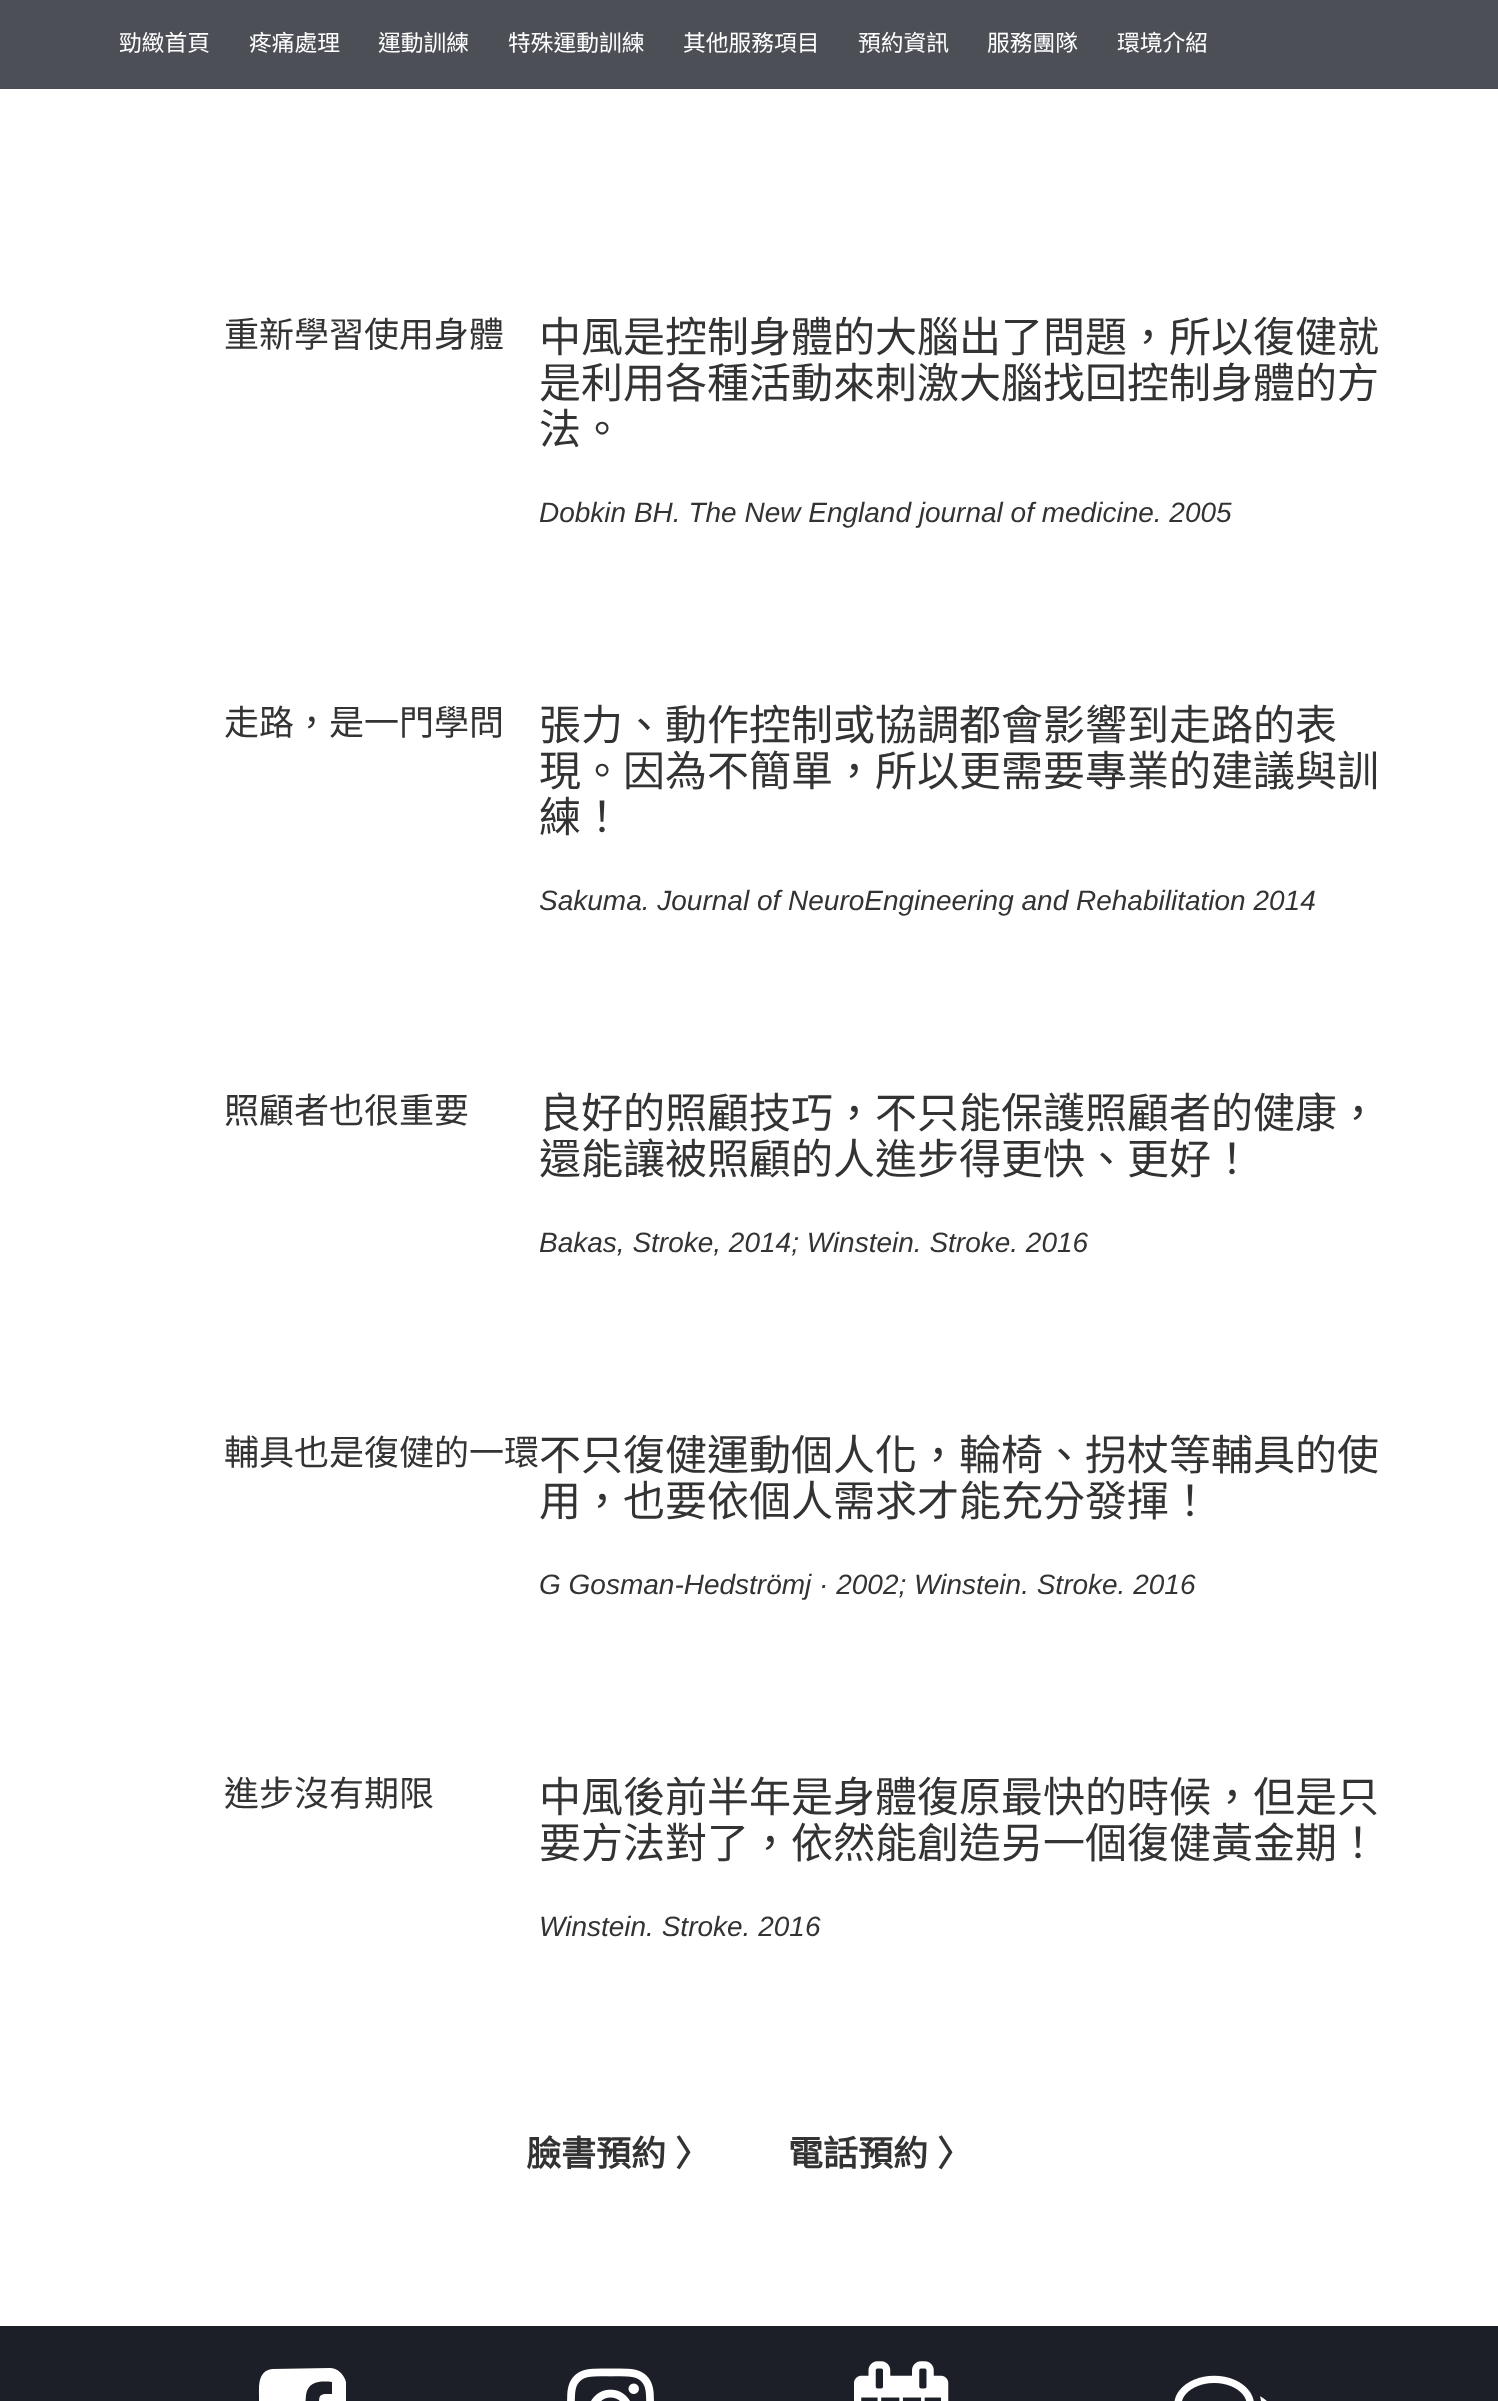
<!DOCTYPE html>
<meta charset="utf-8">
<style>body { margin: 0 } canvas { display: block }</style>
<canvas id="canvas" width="1498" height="2401"></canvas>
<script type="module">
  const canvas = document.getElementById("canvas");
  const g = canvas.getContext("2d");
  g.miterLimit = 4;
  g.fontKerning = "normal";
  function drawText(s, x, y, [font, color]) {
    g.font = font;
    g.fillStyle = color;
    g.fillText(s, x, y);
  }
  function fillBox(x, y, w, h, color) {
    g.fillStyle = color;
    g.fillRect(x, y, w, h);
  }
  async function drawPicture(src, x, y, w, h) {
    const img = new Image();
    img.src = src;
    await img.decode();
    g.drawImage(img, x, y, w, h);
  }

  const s1 = ["22.75px Noto Sans CJK TC", "#FFFFFF"];
  const s2 = ["35px Noto Sans CJK TC", "#333333"];
  const s3 = ["42px Noto Sans CJK TC", "#333333"];
  const s4 = ["italic 28px Liberation Sans", "#333333"];
  const s5 = ["bold 35px Noto Sans CJK TC", "#333333"];

  fillBox(0, 0, 1498, 2401, "#FFFFFF");
  fillBox(0, 0, 1498, 89, "#4D4F56");
  drawText("勁緻首頁", 119, 51, s1);
  drawText("疼痛處理", 249, 51, s1);
  drawText("運動訓練", 378, 51, s1);
  drawText("特殊運動訓練", 508, 51, s1);
  drawText("其他服務項目", 683, 51, s1);
  drawText("預約資訊", 858, 51, s1);
  drawText("服務團隊", 987, 51, s1);
  drawText("環境介紹", 1117, 51, s1);
  drawText("重新學習使用身體", 224, 347, s2);
  drawText("中風是控制身體的大腦出了問題，所以復健就", 539, 352, s3);
  drawText("是利用各種活動來刺激大腦找回控制身體的方", 539, 398, s3);
  drawText("法。", 539, 444, s3);
  drawText("Dobkin BH. The New England journal of medicine. 2005", 539, 522, s4);
  drawText("走路，是一門學問", 224, 735, s2);
  drawText("張力、動作控制或協調都會影響到走路的表", 539, 740, s3);
  drawText("現。因為不簡單，所以更需要專業的建議與訓", 539, 786, s3);
  drawText("練！", 539, 832, s3);
  drawText("Sakuma. Journal of NeuroEngineering and Rehabilitation 2014", 539, 910, s4);
  drawText("照顧者也很重要", 224, 1123, s2);
  drawText("良好的照顧技巧，不只能保護照顧者的健康，", 539, 1128, s3);
  drawText("還能讓被照顧的人進步得更快、更好！", 539, 1174, s3);
  drawText("Bakas, Stroke, 2014; Winstein. Stroke. 2016", 539, 1252, s4);
  drawText("輔具也是復健的一環", 224, 1465, s2);
  drawText("不只復健運動個人化，輪椅、拐杖等輔具的使", 539, 1470, s3);
  drawText("用，也要依個人需求才能充分發揮！", 539, 1516, s3);
  drawText("G Gosman-Hedströmj · 2002; Winstein. Stroke. 2016", 539, 1594, s4);
  drawText("進步沒有期限", 224, 1806, s2);
  drawText("中風後前半年是身體復原最快的時候，但是只", 539, 1812, s3);
  drawText("要方法對了，依然能創造另一個復健黃金期！", 539, 1858, s3);
  drawText("Winstein. Stroke. 2016", 539, 1936, s4);
  drawText("臉書預約", 526, 2166, s5);
  drawText("〉", 675, 2166, s5);
  drawText("電話預約", 788, 2166, s5);
  drawText("〉", 937, 2166, s5);
  fillBox(0, 2326, 1498, 75, "#1C1F27");
  g.fillStyle = "#FFFFFF";
  g.beginPath();
  g.moveTo(330, 2368);
  g.bezierCurveTo(337, 2368, 344, 2374, 346, 2382);
  g.lineTo(346, 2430);
  g.bezierCurveTo(346, 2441, 346, 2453, 333, 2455);
  g.lineTo(319, 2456);
  g.lineTo(319, 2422);
  g.lineTo(330, 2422);
  g.lineTo(332, 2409);
  g.lineTo(319, 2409);
  g.bezierCurveTo(319, 2394, 318, 2394, 332, 2394);
  g.lineTo(332, 2382);
  g.bezierCurveTo(321, 2381, 308, 2381, 306, 2395);
  g.lineTo(305, 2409);
  g.lineTo(294, 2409);
  g.lineTo(294, 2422);
  g.lineTo(305, 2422);
  g.lineTo(305, 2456);
  g.lineTo(285, 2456);
  g.bezierCurveTo(274, 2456, 262, 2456, 259, 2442);
  g.lineTo(259, 2394);
  g.bezierCurveTo(259, 2383, 259, 2371, 272, 2369);
  g.closePath();
  g.fill();
  await drawPicture("pic1.png", 567, 2368, 87, 33);
  await drawPicture("pic2.png", 854, 2361, 95, 40);
  await drawPicture("pic3.png", 1174, 2375, 93, 26);
</script>
